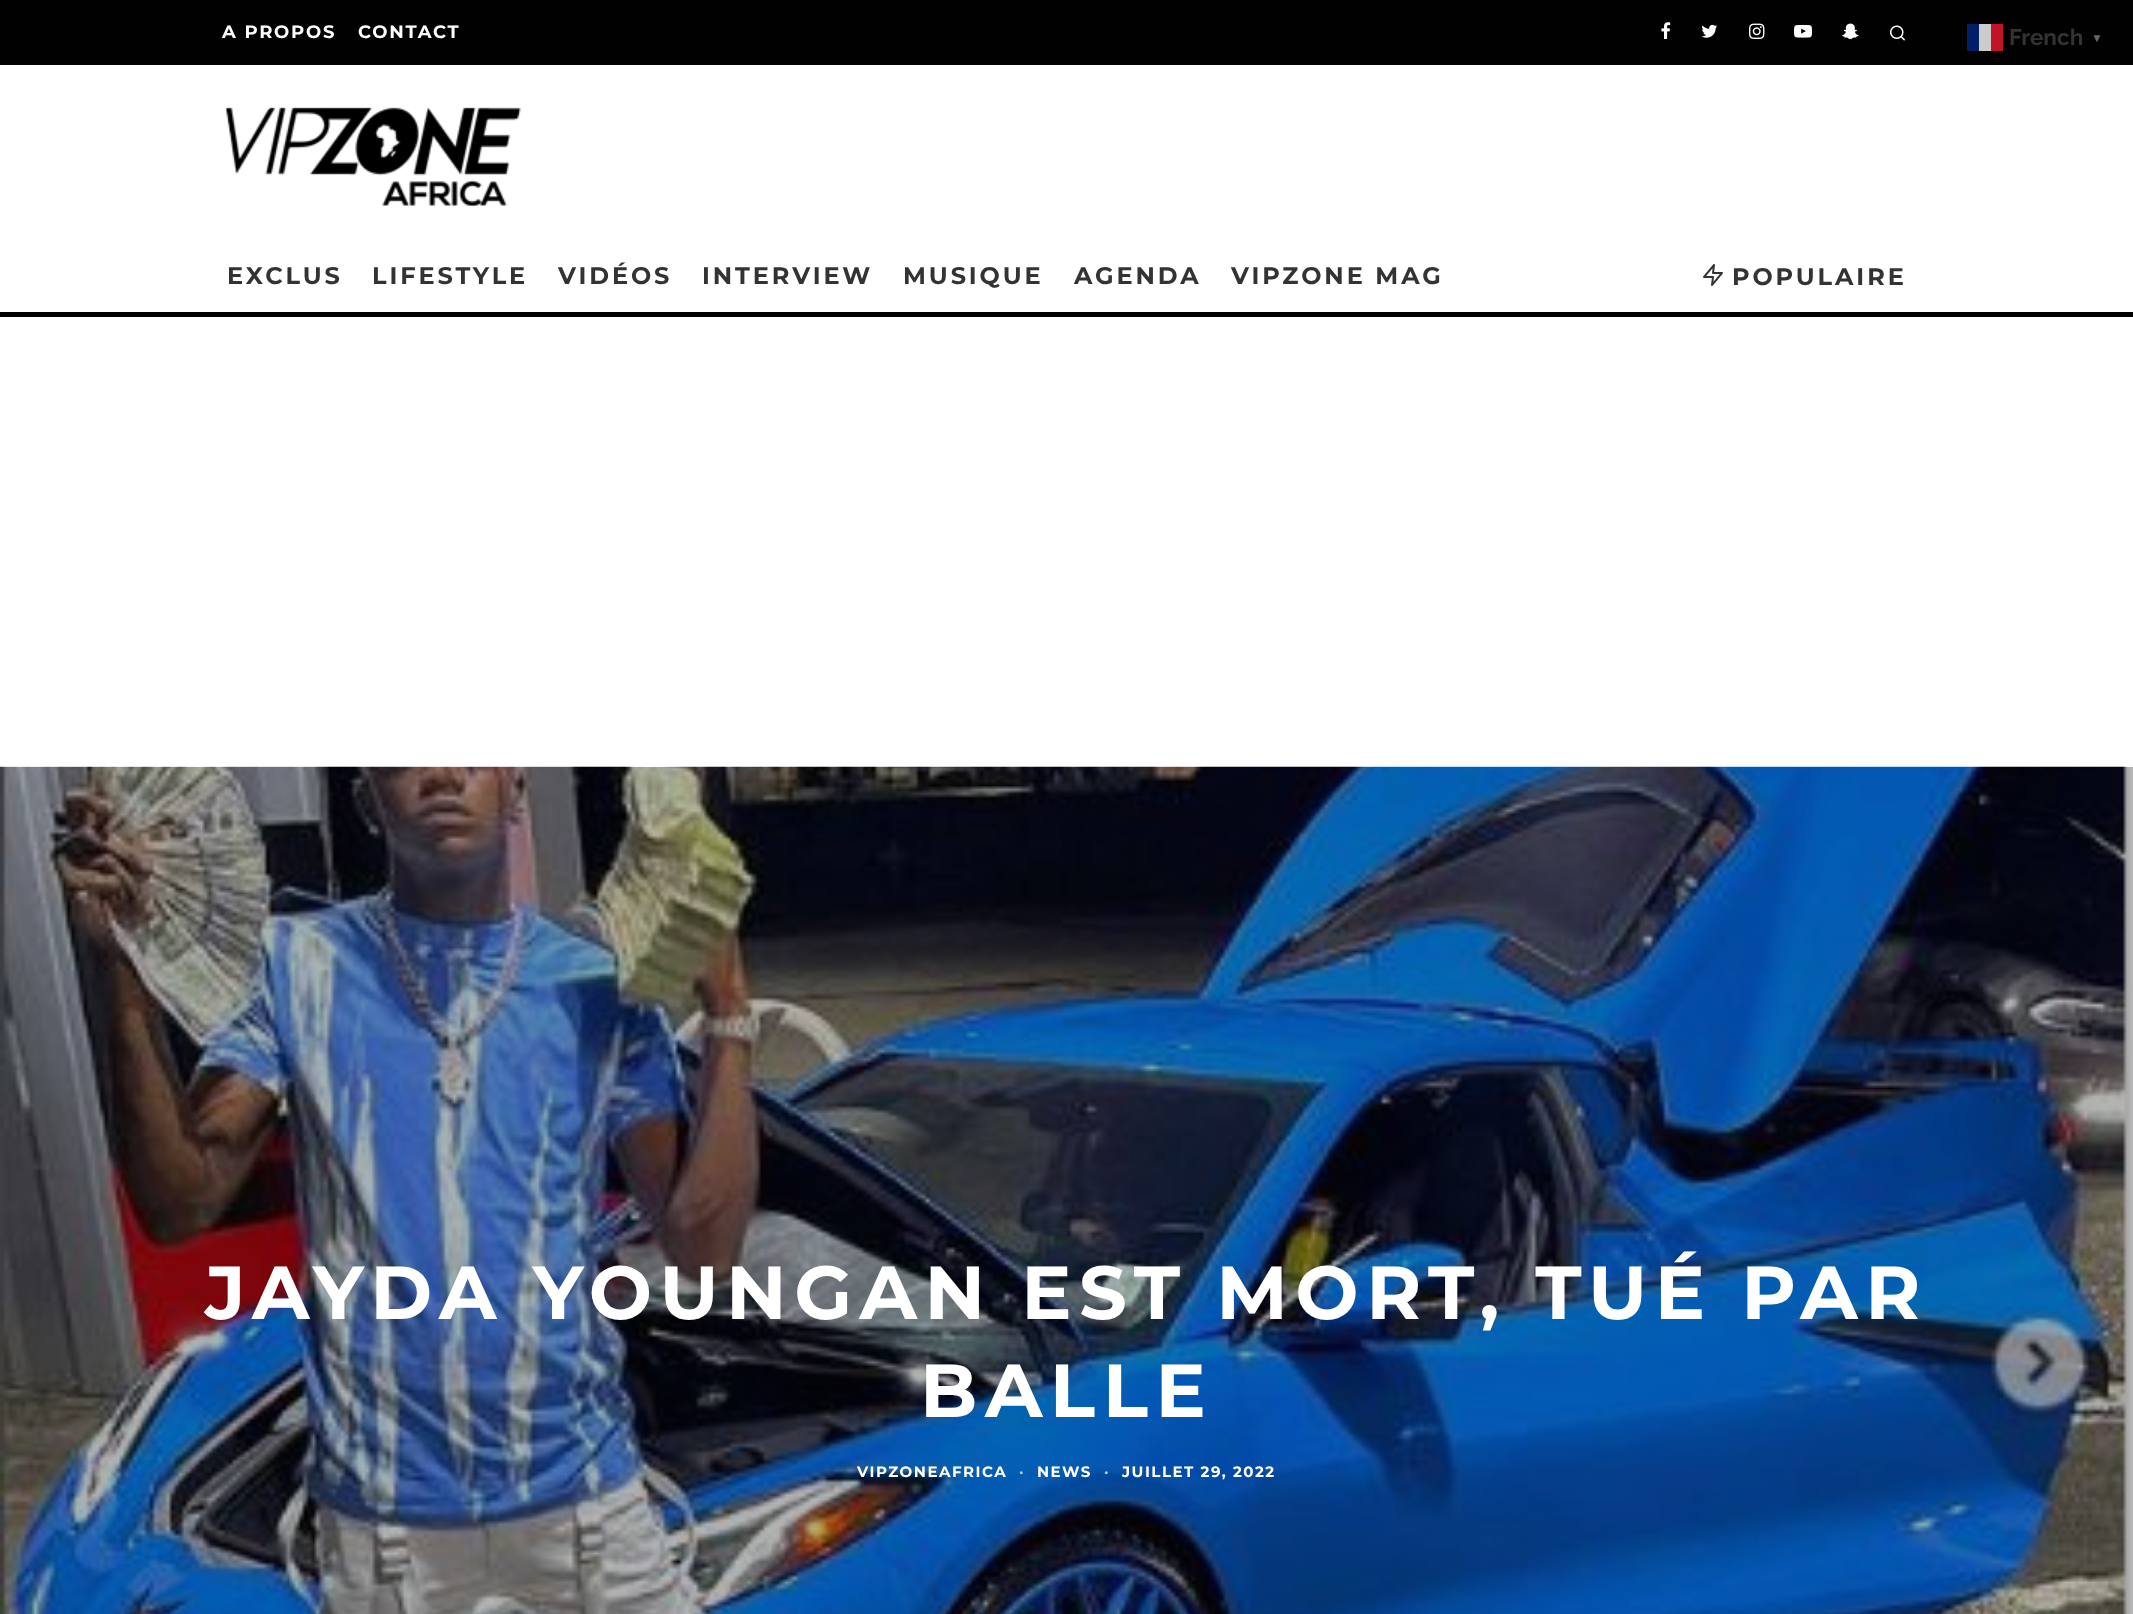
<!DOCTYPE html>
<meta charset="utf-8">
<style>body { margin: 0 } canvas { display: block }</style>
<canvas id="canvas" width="2133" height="1614"></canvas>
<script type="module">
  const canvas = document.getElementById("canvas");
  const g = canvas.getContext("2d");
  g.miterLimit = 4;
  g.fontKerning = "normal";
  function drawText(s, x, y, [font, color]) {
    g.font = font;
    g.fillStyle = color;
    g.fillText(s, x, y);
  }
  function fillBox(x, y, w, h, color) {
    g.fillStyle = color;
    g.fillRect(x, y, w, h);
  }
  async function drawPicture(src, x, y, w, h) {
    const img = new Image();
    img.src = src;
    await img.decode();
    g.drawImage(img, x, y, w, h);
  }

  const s1 = ["bold 18px Montserrat", "#FFFFFF"];
  const s2 = ["bold 24px Montserrat", "#333333"];
  const s3 = ["bold 75px Montserrat", "#FFFFFF"];
  const s4 = ["bold 15px Montserrat", "#FFFFFF"];
  const s5 = ["bold 15px Montserrat", "#B4CEE8"];
  const s6 = ["bold 22.5px Raleway", "#333333"];
  const s7 = ["bold 12px Liberation Sans", "#666666"];

  fillBox(0, 0, 2133, 1614, "#FFFFFF");
  fillBox(0, 0, 2133, 65, "#010101");
  g.letterSpacing = "1.75px";
  drawText("A PROPOS", 222, 38, s1);
  drawText("CONTACT", 358, 38, s1);
  await drawPicture("pic1.png", 1661, 22, 10, 17);
  await drawPicture("pic2.png", 1701, 24, 17, 14);
  await drawPicture("pic3.png", 1749, 23, 16, 16);
  await drawPicture("pic4.png", 1794, 24, 18, 14);
  await drawPicture("pic5.png", 1842, 23, 17, 16);
  await drawPicture("pic6.png", 1890, 25, 15, 16);
  await drawPicture("pic7.png", 225, 107, 296, 100);
  fillBox(0, 312, 2133, 5, "#000000");
  g.letterSpacing = "2.9px";
  drawText("EXCLUS", 227, 284, s2);
  drawText("LIFESTYLE", 372, 284, s2);
  drawText("VIDÉOS", 558, 284, s2);
  drawText("INTERVIEW", 702, 284, s2);
  drawText("MUSIQUE", 903, 284, s2);
  drawText("AGENDA", 1074, 284, s2);
  drawText("VIPZONE MAG", 1231, 284, s2);
  await drawPicture("pic8.png", 1703, 264, 20, 22);
  drawText("POPULAIRE", 1732, 285, s2);
  await drawPicture("pic9.png", 0, 766, 2133, 848);
  g.letterSpacing = "7.5px";
  drawText("JAYDA YOUNGAN EST MORT, TUÉ PAR", 205, 1319, s3);
  drawText("BALLE", 920, 1417, s3);
  g.letterSpacing = "1.5px";
  drawText("VIPZONEAFRICA", 857, 1477, s4);
  drawText("·", 1019, 1477, s5);
  drawText("NEWS", 1037, 1477, s4);
  drawText("·", 1104, 1477, s5);
  drawText("JUILLET 29, 2022", 1122, 1477, s4);
  g.letterSpacing = "0px";
  drawText("French", 2009, 45, s6);
  fillBox(1979, 24, 12, 27, "#CCCCCC");
  fillBox(1967, 24, 12, 27, "#001F66");
  fillBox(1991, 24, 12, 27, "#C31327");
  drawText("▼", 2091, 42, s7);
</script>
